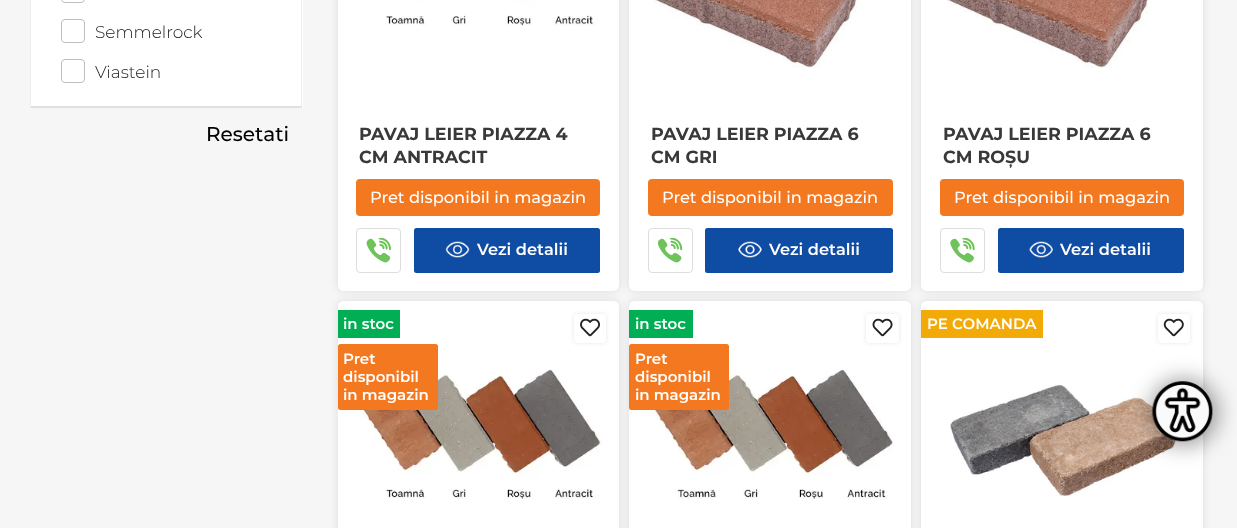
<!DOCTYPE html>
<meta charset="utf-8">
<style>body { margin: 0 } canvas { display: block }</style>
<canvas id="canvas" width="1237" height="528"></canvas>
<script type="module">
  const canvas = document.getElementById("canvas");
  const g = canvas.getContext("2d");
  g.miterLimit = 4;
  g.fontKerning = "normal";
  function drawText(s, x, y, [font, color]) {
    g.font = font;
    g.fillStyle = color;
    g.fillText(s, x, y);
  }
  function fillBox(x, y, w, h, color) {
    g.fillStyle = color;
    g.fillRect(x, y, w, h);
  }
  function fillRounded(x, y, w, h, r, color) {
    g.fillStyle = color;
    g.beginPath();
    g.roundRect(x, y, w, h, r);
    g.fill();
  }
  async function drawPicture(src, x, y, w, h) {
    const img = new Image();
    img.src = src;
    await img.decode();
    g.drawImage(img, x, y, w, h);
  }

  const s1 = ["300 17px Montserrat", "#212529"];
  const s2 = ["500 20px Montserrat", "#000000"];
  const s3 = ["bold 17.5px Montserrat", "#393939"];
  const s4 = ["500 16.25px Montserrat", "#FFFFFF"];
  const s5 = ["600 16.25px Montserrat", "#FFFFFF"];
  const s6 = ["600 15px Montserrat", "#FFFFFF"];

  fillBox(0, 0, 1237, 528, "#F6F6F6");
  fillBox(30, 0, 273, 108, "#FFFFFF");
  g.fillStyle = "#EEEEEE";
  g.beginPath();
  g.moveTo(302, -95);
  g.lineTo(302, 108);
  g.lineTo(301, 106);
  g.lineTo(301, -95);
  g.closePath();
  g.fill();
  g.fillStyle = "rgba(0, 0, 0, 0.12)";
  g.beginPath();
  g.moveTo(302, 108);
  g.lineTo(30, 108);
  g.lineTo(31, 106);
  g.lineTo(301, 106);
  g.closePath();
  g.fill();
  g.fillStyle = "#EEEEEE";
  g.beginPath();
  g.moveTo(30, 108);
  g.lineTo(30, -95);
  g.lineTo(31, -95);
  g.lineTo(31, 106);
  g.closePath();
  g.fill();
  g.beginPath();
  g.roundRect(61.5, -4.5, 23, 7, 3.5);
  g.strokeStyle = "#BFBFBF";
  g.stroke();
  g.beginPath();
  g.roundRect(61.5, 19.5, 23, 23, 3.5);
  g.stroke();
  drawText("Semmelrock", 95, 38, s1);
  g.beginPath();
  g.roundRect(61.5, 59.5, 23, 23, 3.5);
  g.stroke();
  drawText("Viastein", 95, 78, s1);
  drawText("Resetati", 206, 141, s2);
  g.fillStyle = "rgba(0, 0, 0, 0.1)";
  g.filter = "blur(4.5px)";
  g.beginPath();
  g.roundRect(338, -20, 281, 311, 6);
  g.fill();
  g.filter = "none";
  fillBox(338, 0, 281, 110, "#FFFFFF");
  await drawPicture("pic1.png", 385, 0, 211, 26);
  g.beginPath();
  g.roundRect(338, 110, 281, 181, [0, 0, 6, 6]);
  g.fill();
  drawText("PAVAJ LEIER PIAZZA 4", 359, 140, s3);
  drawText("CM ANTRACIT", 359, 163, s3);
  fillRounded(356, 179, 244, 37, 4, "#F37820");
  drawText("Pret disponibil in magazin", 370, 203, s4);
  g.beginPath();
  g.roundRect(356.5, 228.5, 44, 44, 3.5);
  g.strokeStyle = "#DDDDDD";
  g.stroke();
  await drawPicture("pic2.png", 366, 238, 25, 25);
  fillRounded(414, 228, 186, 45, 2.5, "#0F4CA4");
  await drawPicture("pic3.png", 445, 241, 25, 17);
  drawText("Vezi detalii", 477, 255, s5);
  g.fillStyle = "rgba(0, 0, 0, 0.1)";
  g.filter = "blur(4.5px)";
  g.beginPath();
  g.roundRect(629, -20, 282, 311, 6);
  g.fill();
  g.filter = "none";
  fillBox(629, 0, 282, 110, "#FFFFFF");
  await drawPicture("pic4.png", 653, 0, 204, 68);
  g.beginPath();
  g.roundRect(629, 110, 282, 181, [0, 0, 6, 6]);
  g.fill();
  drawText("PAVAJ LEIER PIAZZA 6", 651, 140, s3);
  drawText("CM GRI", 651, 163, s3);
  fillRounded(648, 179, 245, 37, 4, "#F37820");
  drawText("Pret disponibil in magazin", 662, 203, s4);
  g.beginPath();
  g.roundRect(648.5, 228.5, 44, 44, 3.5);
  g.stroke();
  await drawPicture("pic5.png", 658, 238, 25, 25);
  fillRounded(705, 228, 188, 45, 2.5, "#0F4CA4");
  await drawPicture("pic6.png", 738, 241, 24, 17);
  drawText("Vezi detalii", 769, 255, s5);
  g.fillStyle = "rgba(0, 0, 0, 0.1)";
  g.filter = "blur(4.5px)";
  g.beginPath();
  g.roundRect(921, -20, 282, 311, 6);
  g.fill();
  g.filter = "none";
  fillBox(921, 0, 282, 110, "#FFFFFF");
  await drawPicture("pic7.png", 946, 0, 203, 68);
  g.beginPath();
  g.roundRect(921, 110, 282, 181, [0, 0, 6, 6]);
  g.fill();
  drawText("PAVAJ LEIER PIAZZA 6", 943, 140, s3);
  drawText("CM ROȘU", 943, 163, s3);
  fillRounded(940, 179, 244, 37, 4, "#F37820");
  drawText("Pret disponibil in magazin", 954, 203, s4);
  g.beginPath();
  g.roundRect(940.5, 228.5, 44, 44, 3.5);
  g.stroke();
  await drawPicture("pic8.png", 950, 238, 25, 25);
  fillRounded(998, 228, 186, 45, 2.5, "#0F4CA4");
  await drawPicture("pic9.png", 1029, 241, 24, 17);
  drawText("Vezi detalii", 1060, 255, s5);
  g.fillStyle = "rgba(0, 0, 0, 0.1)";
  g.filter = "blur(4.5px)";
  g.beginPath();
  g.roundRect(338, 301, 281, 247, 6);
  g.fill();
  g.filter = "none";
  g.fillStyle = "#FFFFFF";
  g.beginPath();
  g.moveTo(344, 301);
  g.lineTo(613, 301);
  g.bezierCurveTo(616.5, 301, 619, 303.5, 619, 307);
  g.lineTo(619, 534);
  g.lineTo(338, 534);
  g.lineTo(338, 307);
  g.bezierCurveTo(338, 303.5, 340.5, 301, 344, 301);
  g.closePath();
  g.fill();
  fillBox(338, 310, 62, 28, "#00AF54");
  drawText("in stoc", 343, 329, s6);
  await drawPicture("pic11.png", 355, 369, 247, 130);
  fillRounded(338, 344, 100, 66, 2.5, "#F37820");
  drawText("Pret", 343, 364, s6);
  drawText("disponibil", 343, 382, s6);
  drawText("in magazin", 343, 400, s6);
  g.fillStyle = "rgba(0, 0, 0, 0.1)";
  g.filter = "blur(2px)";
  g.beginPath();
  g.roundRect(574, 314, 32, 29, 4);
  g.fill();
  g.filter = "none";
  fillRounded(574, 314, 32, 29, 4, "#FFFFFF");
  await drawPicture("pic10.png", 580, 318, 20, 19);
  g.fillStyle = "rgba(0, 0, 0, 0.1)";
  g.filter = "blur(4.5px)";
  g.beginPath();
  g.roundRect(629, 301, 282, 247, 6);
  g.fill();
  g.filter = "none";
  g.fillStyle = "#FFFFFF";
  g.beginPath();
  g.moveTo(635, 301);
  g.lineTo(905, 301);
  g.bezierCurveTo(908.5, 301, 911, 303.5, 911, 307);
  g.lineTo(911, 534);
  g.lineTo(629, 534);
  g.lineTo(629, 307);
  g.bezierCurveTo(629, 303.5, 631.5, 301, 635, 301);
  g.closePath();
  g.fill();
  fillBox(629, 310, 64, 28, "#00AF54");
  drawText("in stoc", 635, 329, s6);
  await drawPicture("pic13.png", 647, 369, 247, 130);
  fillRounded(629, 344, 100, 66, 2.5, "#F37820");
  drawText("Pret", 635, 364, s6);
  drawText("disponibil", 635, 382, s6);
  drawText("in magazin", 635, 400, s6);
  g.fillStyle = "rgba(0, 0, 0, 0.1)";
  g.filter = "blur(2px)";
  g.beginPath();
  g.roundRect(866, 314, 33, 29, 4);
  g.fill();
  g.filter = "none";
  fillRounded(866, 314, 33, 29, 4, "#FFFFFF");
  await drawPicture("pic12.png", 872, 318, 21, 19);
  g.fillStyle = "rgba(0, 0, 0, 0.1)";
  g.filter = "blur(4.5px)";
  g.beginPath();
  g.roundRect(921, 301, 282, 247, 6);
  g.fill();
  g.filter = "none";
  g.fillStyle = "#FFFFFF";
  g.beginPath();
  g.moveTo(927, 301);
  g.lineTo(1197, 301);
  g.bezierCurveTo(1200.5, 301, 1203, 303.5, 1203, 307);
  g.lineTo(1203, 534);
  g.lineTo(921, 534);
  g.lineTo(921, 307);
  g.bezierCurveTo(921, 303.5, 923.5, 301, 927, 301);
  g.closePath();
  g.fill();
  fillBox(921, 310, 122, 28, "#F2AA08");
  drawText("PE COMANDA", 927, 329, s6);
  g.fillStyle = "rgba(0, 0, 0, 0.1)";
  g.filter = "blur(2px)";
  g.beginPath();
  g.roundRect(1158, 314, 32, 29, 4);
  g.fill();
  g.filter = "none";
  fillRounded(1158, 314, 32, 29, 4, "#FFFFFF");
  await drawPicture("pic14.png", 1163, 318, 21, 19);
  await drawPicture("pic15.png", 950, 384, 227, 112);
  g.fillStyle = "rgba(0, 0, 0, 0.38)";
  g.filter = "blur(10.5px)";
  g.beginPath();
  g.roundRect(1150, 379, 68, 67, 33.5);
  g.fill();
  g.filter = "none";
  g.fillStyle = "#FAFAFA";
  g.beginPath();
  g.arc(1183, 411, 30, 0, Math.PI * 2);
  g.fill();
  await drawPicture("pic16.png", 1152, 381, 61, 61);
</script>
